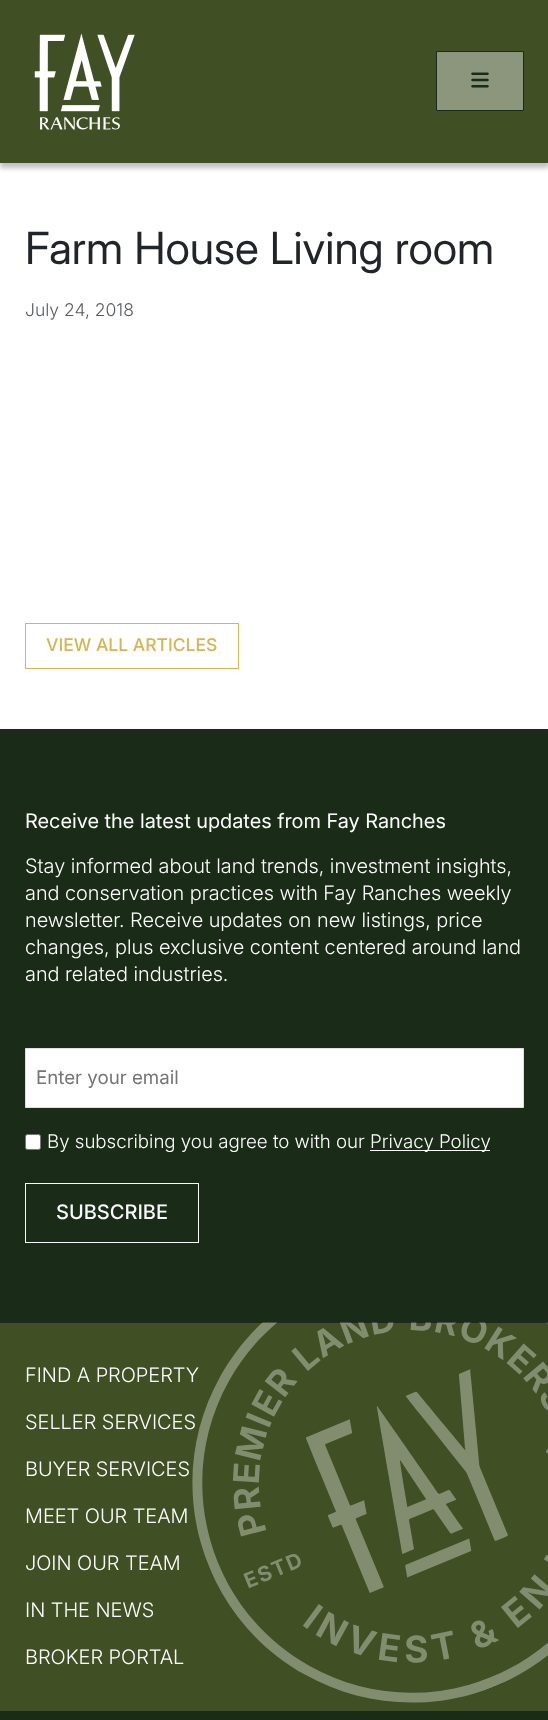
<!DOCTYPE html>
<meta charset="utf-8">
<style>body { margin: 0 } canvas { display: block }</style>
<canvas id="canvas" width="548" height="1720"></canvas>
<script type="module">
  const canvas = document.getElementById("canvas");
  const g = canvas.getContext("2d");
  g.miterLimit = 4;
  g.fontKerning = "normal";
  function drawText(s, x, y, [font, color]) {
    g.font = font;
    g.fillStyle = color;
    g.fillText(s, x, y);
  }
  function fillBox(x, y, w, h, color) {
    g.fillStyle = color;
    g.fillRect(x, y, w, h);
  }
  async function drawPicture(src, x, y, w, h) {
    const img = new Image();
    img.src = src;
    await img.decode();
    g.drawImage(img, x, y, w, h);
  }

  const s1 = ["44.25px Inter", "#212529"];
  const s2 = ["300 17.5px Inter", "#595C5F"];
  const s3 = ["500 17.5px Inter", "#D7B454"];
  const s4 = ["20px 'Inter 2'", "#FFFFFF"];
  const s5 = ["300 20px 'Inter 2'", "#FFFFFF"];
  const s6 = ["18.75px 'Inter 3'", "#757575"];
  const s7 = ["300 18.75px 'Inter 3'", "#FFFFFF"];
  const s8 = ["500 20px Inter", "#F8F9FA"];

  fillBox(0, 0, 548, 1720, "#FFFFFF");
  g.fillStyle = "rgba(0, 0, 0, 0.25)";
  g.filter = "blur(2.5px)";
  g.beginPath();
  g.rect(0, 5, 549, 163);
  g.fill();
  g.filter = "none";
  fillBox(0, 0, 548, 163, "#405024");
  await drawPicture("pic1.png", 34, 34, 101, 96);
  g.fillStyle = "#8C967C";
  g.beginPath();
  g.rect(436.5, 51.5, 87, 59);
  g.fill();
  g.strokeStyle = "#1A2C17";
  g.stroke();
  await drawPicture("pic2.png", 471, 72, 18, 16);
  drawText("Farm House Living room", 25, 264, s1);
  drawText("July 24, 2018", 25, 316, s2);
  g.strokeStyle = "#D7B454";
  g.strokeRect(25.5, 623.5, 213, 45);
  drawText("VIEW ALL ARTICLES", 46, 651, s3);
  fillBox(0, 729, 548, 594, "#1A2C17");
  drawText("Receive the latest updates from Fay Ranches", 25, 828, s4);
  drawText("Stay informed about land trends, investment insights,", 25, 873, s5);
  drawText("and conservation practices with Fay Ranches weekly", 25, 900, s5);
  drawText("newsletter. Receive updates on new listings, price", 25, 927, s5);
  drawText("changes, plus exclusive content centered around land", 25, 954, s5);
  drawText("and related industries.", 25, 981, s5);
  g.beginPath();
  g.rect(25.5, 1048.5, 498, 59);
  g.fill();
  g.strokeStyle = "#DEE2E6";
  g.stroke();
  drawText("Enter your email", 36, 1084, s6);
  g.fillStyle = "#FFFFFF";
  g.beginPath();
  g.roundRect(25.5, 1134.5, 15, 15, 2);
  g.fill();
  g.strokeStyle = "#767676";
  g.stroke();
  drawText("By subscribing you agree to with our", 47, 1148, s7);
  fillBox(370, 1150, 120, 1, "#FFFFFF");
  drawText("Privacy Policy", 370, 1148, s7);
  g.strokeStyle = "#F8F9FA";
  g.strokeRect(25.5, 1183.5, 173, 59);
  drawText("SUBSCRIBE", 56, 1219, s8);
  fillBox(0, 1323, 548, 388, "#405024");
  drawText("FIND A PROPERTY", 25, 1382, s5);
  drawText("SELLER SERVICES", 25, 1429, s5);
  drawText("BUYER SERVICES", 25, 1476, s5);
  drawText("MEET OUR TEAM", 25, 1523, s5);
  drawText("JOIN OUR TEAM", 25, 1570, s5);
  drawText("IN THE NEWS", 25, 1617, s5);
  drawText("BROKER PORTAL", 25, 1664, s5);
  await drawPicture("pic3.png", 192, 1322, 356, 381);
  fillBox(0, 1711, 548, 9, "#1A2C17");
</script>
